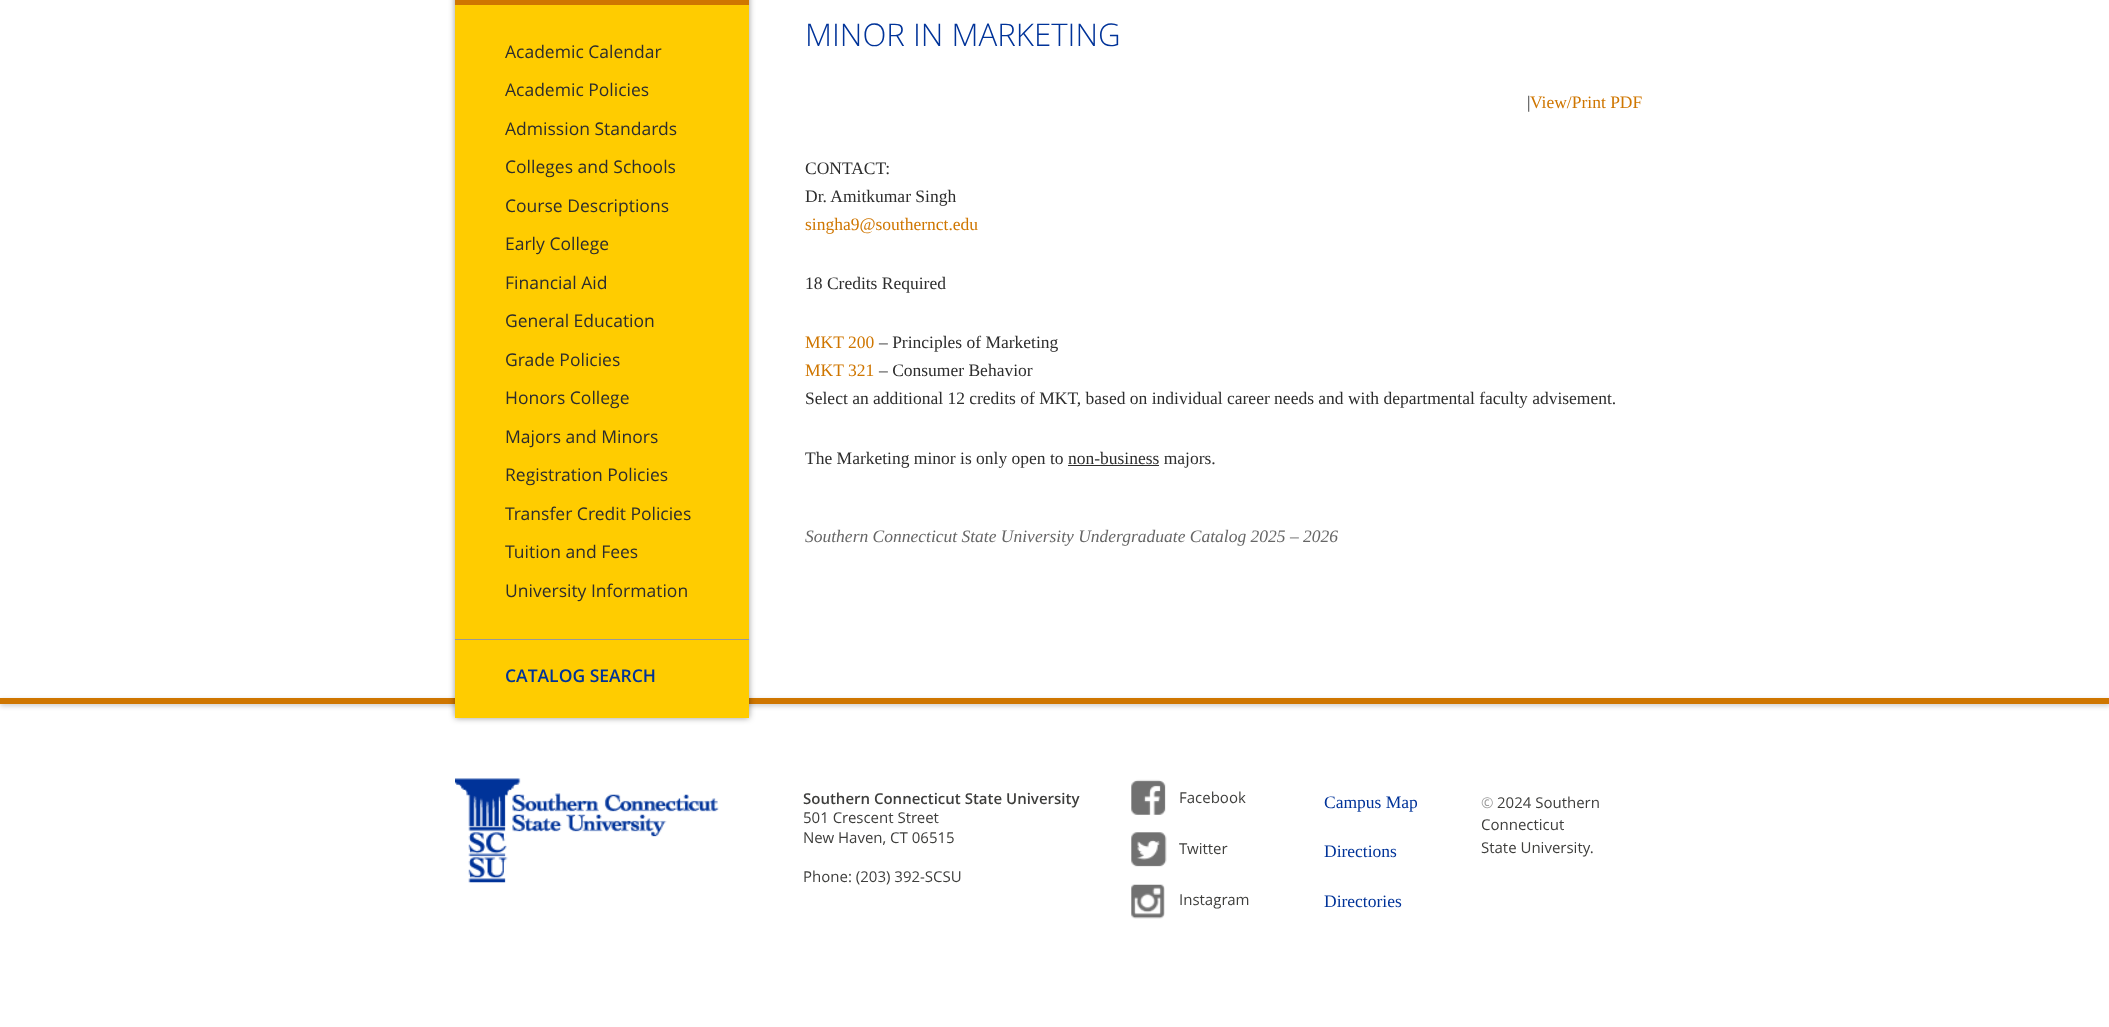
<!DOCTYPE html>
<meta charset="utf-8">
<style>body { margin: 0 } canvas { display: block }</style>
<canvas id="canvas" width="2109" height="1027"></canvas>
<script type="module">
  const canvas = document.getElementById("canvas");
  const g = canvas.getContext("2d");
  g.miterLimit = 4;
  g.fontKerning = "normal";
  function drawText(s, x, y, [font, color]) {
    g.font = font;
    g.fillStyle = color;
    g.fillText(s, x, y);
  }
  function fillBox(x, y, w, h, color) {
    g.fillStyle = color;
    g.fillRect(x, y, w, h);
  }
  async function drawPicture(src, x, y, w, h) {
    const img = new Image();
    img.src = src;
    await img.decode();
    g.drawImage(img, x, y, w, h);
  }

  const s1 = ["300 31.25px Open Sans", "#003399"];
  const s2 = ["17.5px Open Sans", "#2D2D2D"];
  const s3 = ["600 17.5px Open Sans", "#003399"];
  const s4 = ["17.5px Liberation Serif", "#2D2D2D"];
  const s5 = ["17.5px Liberation Serif", "#CF7600"];
  const s6 = ["italic 17.5px Liberation Serif", "#666666"];
  const s7 = ["600 15px Open Sans", "#3E3E3C"];
  const s8 = ["15px Open Sans", "#3E3E3C"];
  const s9 = ["17.5px Liberation Serif", "#003399"];
  const s10 = ["15px Open Sans", "#9C9C9C"];

  fillBox(0, 0, 2109, 1027, "#FFFFFF");
  drawText("MINOR IN MARKETING", 805, 46, s1);
  g.fillStyle = "rgba(0, 0, 0, 0.2)";
  g.filter = "blur(2.5px)";
  g.beginPath();
  g.rect(0, 700, 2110, 6);
  g.fill();
  g.filter = "none";
  fillBox(0, 698, 2109, 6, "#CF7600");
  g.fillStyle = "rgba(0, 0, 0, 0.4)";
  g.filter = "blur(3px)";
  g.beginPath();
  g.rect(455, -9, 294, 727);
  g.fill();
  g.filter = "none";
  fillBox(455, 5, 294, 713, "#FFCC00");
  fillBox(455, 0, 294, 5, "#CF7600");
  drawText("Academic Calendar", 505, 58, s2);
  drawText("Academic Policies", 505, 96, s2);
  drawText("Admission Standards", 505, 135, s2);
  drawText("Colleges and Schools", 505, 173, s2);
  drawText("Course Descriptions", 505, 212, s2);
  drawText("Early College", 505, 250, s2);
  drawText("Financial Aid", 505, 289, s2);
  drawText("General Education", 505, 327, s2);
  drawText("Grade Policies", 505, 366, s2);
  drawText("Honors College", 505, 404, s2);
  drawText("Majors and Minors", 505, 443, s2);
  drawText("Registration Policies", 505, 481, s2);
  drawText("Transfer Credit Policies", 505, 520, s2);
  drawText("Tuition and Fees", 505, 558, s2);
  drawText("University Information", 505, 597, s2);
  fillBox(455, 639, 294, 1, "#999999");
  drawText("CATALOG SEARCH", 505, 682, s3);
  drawText("|", 1527, 108, s4);
  drawText("View/Print PDF", 1530, 108, s5);
  drawText("CONTACT:", 805, 174, s4);
  drawText("Dr. Amitkumar Singh", 805, 202, s4);
  drawText("singha9@southernct.edu", 805, 230, s5);
  drawText("18 Credits Required", 805, 289, s4);
  drawText("MKT 200", 805, 348, s5);
  drawText("– Principles of Marketing", 879, 348, s4);
  drawText("MKT 321", 805, 376, s5);
  drawText("– Consumer Behavior", 879, 376, s4);
  drawText("Select an additional 12 credits of MKT, based on individual career needs and with departmental faculty advisement.", 805, 404, s4);
  drawText("The Marketing minor is only open to non-business majors.", 805, 464, s4);
  fillBox(1068, 465, 91, 1, "#2D2D2D");
  drawText("Southern Connecticut State University Undergraduate Catalog 2025 – 2026", 805, 542, s6);
  await drawPicture("pic1.png", 455, 778, 264, 105);
  drawText("Southern Connecticut State University", 803, 804, s7);
  drawText("501 Crescent Street", 803, 823, s8);
  drawText("New Haven, CT 06515", 803, 843, s8);
  drawText("Phone: (203) 392-SCSU", 803, 882, s8);
  await drawPicture("pic2.png", 1131, 779, 35, 36);
  drawText("Facebook", 1179, 803, s8);
  await drawPicture("pic3.png", 1131, 832, 36, 35);
  drawText("Twitter", 1179, 854, s8);
  await drawPicture("pic4.png", 1131, 884, 34, 35);
  drawText("Instagram", 1179, 905, s8);
  drawText("Campus Map", 1324, 808, s9);
  drawText("Directions", 1324, 857, s9);
  drawText("Directories", 1324, 907, s9);
  drawText("©", 1481, 808, s10);
  drawText("2024 Southern", 1497, 808, s8);
  drawText("Connecticut", 1481, 830, s8);
  drawText("State University.", 1481, 853, s8);
</script>
